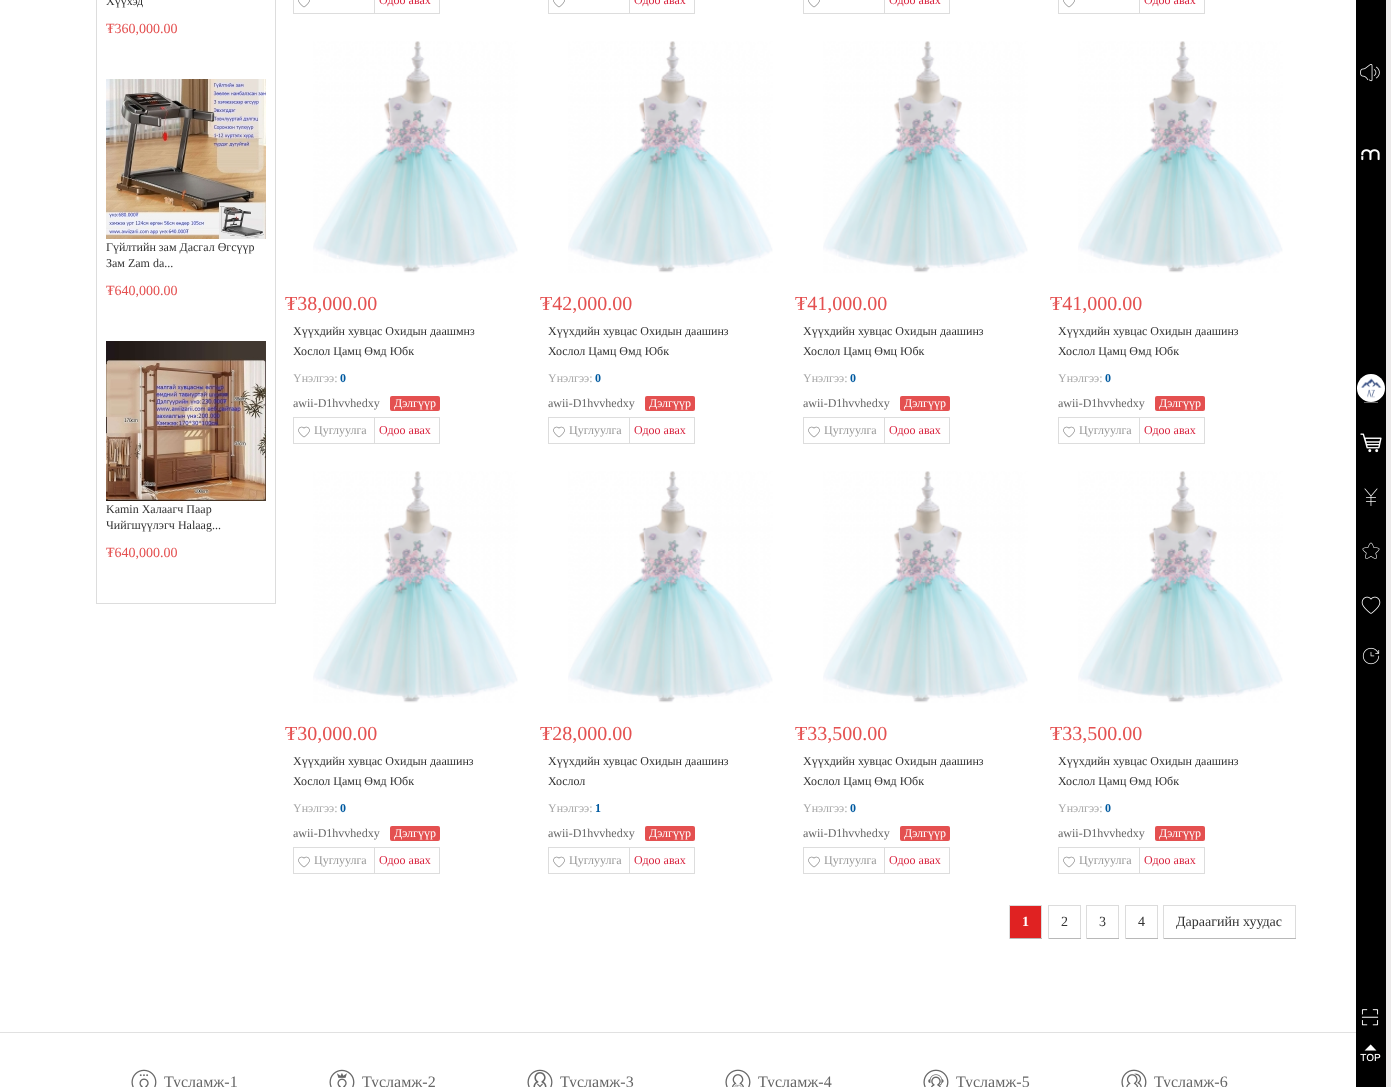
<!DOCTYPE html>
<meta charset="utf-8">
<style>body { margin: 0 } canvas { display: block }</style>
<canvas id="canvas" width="1391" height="1087"></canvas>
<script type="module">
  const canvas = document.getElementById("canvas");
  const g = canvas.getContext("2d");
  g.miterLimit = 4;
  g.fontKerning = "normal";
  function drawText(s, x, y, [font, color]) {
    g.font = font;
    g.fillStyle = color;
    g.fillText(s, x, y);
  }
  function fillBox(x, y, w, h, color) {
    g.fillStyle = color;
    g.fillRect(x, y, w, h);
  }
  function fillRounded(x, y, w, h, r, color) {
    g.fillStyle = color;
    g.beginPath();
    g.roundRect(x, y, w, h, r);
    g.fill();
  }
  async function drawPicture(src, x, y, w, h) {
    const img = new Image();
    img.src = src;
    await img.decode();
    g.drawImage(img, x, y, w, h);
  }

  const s1 = ["12px Liberation Serif", "#333333"];
  const s2 = ["14px Liberation Serif", "#E45050"];
  const s3 = ["12px Liberation Serif", "#D92540"];
  const s4 = ["20px Liberation Serif", "#E45050"];
  const s5 = ["12px Liberation Serif", "#A7A7A7"];
  const s6 = ["bold 12px Liberation Serif", "#005AA0"];
  const s7 = ["12px Liberation Serif", "#666666"];
  const s8 = ["12px Liberation Serif", "#FFFFFF"];
  const s9 = ["12px Liberation Serif", "#999999"];
  const s10 = ["bold 14px Liberation Serif", "#FFFFFF"];
  const s11 = ["14px Liberation Serif", "#333333"];
  const s12 = ["16px Liberation Serif", "#666666"];

  fillBox(0, 0, 1391, 1087, "#FFFFFF");
  g.strokeStyle = "#DDDDDD";
  g.strokeRect(96.5, -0.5, 179, 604);
  drawText("Хүүхэд", 106, 5, s1);
  drawText("₮360,000.00", 106, 33, s2);
  await drawPicture("pic1.png", 106, 79, 160, 160);
  drawText("Гүйлтийн зам Дасгал Өгсүүр", 106, 251, s1);
  drawText("Зам Zam da...", 106, 267, s1);
  drawText("₮640,000.00", 106, 295, s2);
  await drawPicture("pic2.png", 106, 341, 160, 160);
  drawText("Kamin Халаагч Паар", 106, 513, s1);
  drawText("Чийгшүүлэгч Halaag...", 106, 529, s1);
  drawText("₮640,000.00", 106, 557, s2);
  g.strokeRect(293.5, -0.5, 81, 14);
  await drawPicture("pic3.png", 298, 0, 12, 8);
  g.strokeRect(374.5, -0.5, 65, 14);
  drawText("Одоо авах", 379, 4, s3);
  g.strokeRect(548.5, -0.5, 81, 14);
  await drawPicture("pic3.png", 553, 0, 12, 8);
  g.strokeRect(629.5, -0.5, 65, 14);
  drawText("Одоо авах", 634, 4, s3);
  g.strokeRect(803.5, -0.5, 81, 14);
  await drawPicture("pic3.png", 808, 0, 12, 8);
  g.strokeRect(884.5, -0.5, 65, 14);
  drawText("Одоо авах", 889, 4, s3);
  g.strokeRect(1058.5, -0.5, 81, 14);
  await drawPicture("pic3.png", 1063, 0, 12, 8);
  g.strokeRect(1139.5, -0.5, 65, 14);
  drawText("Одоо авах", 1144, 4, s3);
  await drawPicture("pic4.png", 313, 41, 205, 232);
  drawText("₮38,000.00", 285, 310, s4);
  drawText("Хүүхдийн хувцас Охидын даашмнз", 293, 335, s1);
  drawText("Хослол Цамц Өмд Юбк", 293, 355, s1);
  drawText("Үнэлгээ:", 293, 382, s5);
  drawText("0", 340, 382, s6);
  drawText("awii-D1hvvhedxy", 293, 407, s7);
  fillRounded(390, 396, 50, 15, 2, "#E45050");
  drawText("Дэлгүүр", 394, 407, s8);
  g.strokeRect(293.5, 417.5, 81, 26);
  await drawPicture("pic5.png", 298, 426, 12, 12);
  drawText("Цуглуулга", 314, 434, s9);
  g.strokeRect(374.5, 417.5, 65, 26);
  drawText("Одоо авах", 379, 434, s3);
  await drawPicture("pic4.png", 568, 41, 205, 232);
  drawText("₮42,000.00", 540, 310, s4);
  drawText("Хүүхдийн хувцас Охидын даашинз", 548, 335, s1);
  drawText("Хослол Цамц Өмд Юбк", 548, 355, s1);
  drawText("Үнэлгээ:", 548, 382, s5);
  drawText("0", 595, 382, s6);
  drawText("awii-D1hvvhedxy", 548, 407, s7);
  fillRounded(645, 396, 50, 15, 2, "#E45050");
  drawText("Дэлгүүр", 649, 407, s8);
  g.strokeRect(548.5, 417.5, 81, 26);
  await drawPicture("pic5.png", 553, 426, 12, 12);
  drawText("Цуглуулга", 569, 434, s9);
  g.strokeRect(629.5, 417.5, 65, 26);
  drawText("Одоо авах", 634, 434, s3);
  await drawPicture("pic4.png", 823, 41, 205, 232);
  drawText("₮41,000.00", 795, 310, s4);
  drawText("Хүүхдийн хувцас Охидын даашинз", 803, 335, s1);
  drawText("Хослол Цамц Өмц Юбк", 803, 355, s1);
  drawText("Үнэлгээ:", 803, 382, s5);
  drawText("0", 850, 382, s6);
  drawText("awii-D1hvvhedxy", 803, 407, s7);
  fillRounded(900, 396, 50, 15, 2, "#E45050");
  drawText("Дэлгүүр", 904, 407, s8);
  g.strokeRect(803.5, 417.5, 81, 26);
  await drawPicture("pic5.png", 808, 426, 12, 12);
  drawText("Цуглуулга", 824, 434, s9);
  g.strokeRect(884.5, 417.5, 65, 26);
  drawText("Одоо авах", 889, 434, s3);
  await drawPicture("pic4.png", 1078, 41, 205, 232);
  drawText("₮41,000.00", 1050, 310, s4);
  drawText("Хүүхдийн хувцас Охидын даашинз", 1058, 335, s1);
  drawText("Хослол Цамц Өмд Юбк", 1058, 355, s1);
  drawText("Үнэлгээ:", 1058, 382, s5);
  drawText("0", 1105, 382, s6);
  drawText("awii-D1hvvhedxy", 1058, 407, s7);
  fillRounded(1155, 396, 50, 15, 2, "#E45050");
  drawText("Дэлгүүр", 1159, 407, s8);
  g.strokeRect(1058.5, 417.5, 81, 26);
  await drawPicture("pic5.png", 1063, 426, 12, 12);
  drawText("Цуглуулга", 1079, 434, s9);
  g.strokeRect(1139.5, 417.5, 65, 26);
  drawText("Одоо авах", 1144, 434, s3);
  await drawPicture("pic6.png", 313, 471, 205, 232);
  drawText("₮30,000.00", 285, 740, s4);
  drawText("Хүүхдийн хувцас Охидын даашинз", 293, 765, s1);
  drawText("Хослол Цамц Өмд Юбк", 293, 785, s1);
  drawText("Үнэлгээ:", 293, 812, s5);
  drawText("0", 340, 812, s6);
  drawText("awii-D1hvvhedxy", 293, 837, s7);
  fillRounded(390, 826, 50, 15, 2, "#E45050");
  drawText("Дэлгүүр", 394, 837, s8);
  g.strokeRect(293.5, 847.5, 81, 26);
  await drawPicture("pic5.png", 298, 856, 12, 12);
  drawText("Цуглуулга", 314, 864, s9);
  g.strokeRect(374.5, 847.5, 65, 26);
  drawText("Одоо авах", 379, 864, s3);
  await drawPicture("pic6.png", 568, 471, 205, 232);
  drawText("₮28,000.00", 540, 740, s4);
  drawText("Хүүхдийн хувцас Охидын даашинз", 548, 765, s1);
  drawText("Хослол", 548, 785, s1);
  drawText("Үнэлгээ:", 548, 812, s5);
  drawText("1", 595, 812, s6);
  drawText("awii-D1hvvhedxy", 548, 837, s7);
  fillRounded(645, 826, 50, 15, 2, "#E45050");
  drawText("Дэлгүүр", 649, 837, s8);
  g.strokeRect(548.5, 847.5, 81, 26);
  await drawPicture("pic5.png", 553, 856, 12, 12);
  drawText("Цуглуулга", 569, 864, s9);
  g.strokeRect(629.5, 847.5, 65, 26);
  drawText("Одоо авах", 634, 864, s3);
  await drawPicture("pic6.png", 823, 471, 205, 232);
  drawText("₮33,500.00", 795, 740, s4);
  drawText("Хүүхдийн хувцас Охидын даашинз", 803, 765, s1);
  drawText("Хослол Цамц Өмд Юбк", 803, 785, s1);
  drawText("Үнэлгээ:", 803, 812, s5);
  drawText("0", 850, 812, s6);
  drawText("awii-D1hvvhedxy", 803, 837, s7);
  fillRounded(900, 826, 50, 15, 2, "#E45050");
  drawText("Дэлгүүр", 904, 837, s8);
  g.strokeRect(803.5, 847.5, 81, 26);
  await drawPicture("pic5.png", 808, 856, 12, 12);
  drawText("Цуглуулга", 824, 864, s9);
  g.strokeRect(884.5, 847.5, 65, 26);
  drawText("Одоо авах", 889, 864, s3);
  await drawPicture("pic6.png", 1078, 471, 205, 232);
  drawText("₮33,500.00", 1050, 740, s4);
  drawText("Хүүхдийн хувцас Охидын даашинз", 1058, 765, s1);
  drawText("Хослол Цамц Өмд Юбк", 1058, 785, s1);
  drawText("Үнэлгээ:", 1058, 812, s5);
  drawText("0", 1105, 812, s6);
  drawText("awii-D1hvvhedxy", 1058, 837, s7);
  fillRounded(1155, 826, 50, 15, 2, "#E45050");
  drawText("Дэлгүүр", 1159, 837, s8);
  g.strokeRect(1058.5, 847.5, 81, 26);
  await drawPicture("pic5.png", 1063, 856, 12, 12);
  drawText("Цуглуулга", 1079, 864, s9);
  g.strokeRect(1139.5, 847.5, 65, 26);
  drawText("Одоо авах", 1144, 864, s3);
  fillBox(1010, 906, 31, 32, "#E02222");
  fillBox(1009, 905, 33, 1, "#DCDCDC");
  fillBox(1041, 905, 1, 34, "#DCDCDC");
  fillBox(1009, 938, 33, 1, "#B8B8B8");
  fillBox(1009, 905, 1, 34, "#DCDCDC");
  drawText("1", 1022, 926, s10);
  fillBox(1048, 905, 33, 1, "#DCDCDC");
  fillBox(1080, 905, 1, 34, "#DCDCDC");
  fillBox(1048, 938, 33, 1, "#B8B8B8");
  fillBox(1048, 905, 1, 34, "#DCDCDC");
  drawText("2", 1061, 926, s11);
  fillBox(1086, 905, 33, 1, "#DCDCDC");
  fillBox(1118, 905, 1, 34, "#DCDCDC");
  fillBox(1086, 938, 33, 1, "#B8B8B8");
  fillBox(1086, 905, 1, 34, "#DCDCDC");
  drawText("3", 1099, 926, s11);
  fillBox(1125, 905, 33, 1, "#DCDCDC");
  fillBox(1157, 905, 1, 34, "#DCDCDC");
  fillBox(1125, 938, 33, 1, "#B8B8B8");
  fillBox(1125, 905, 1, 34, "#DCDCDC");
  drawText("4", 1138, 926, s11);
  fillBox(1163, 905, 133, 1, "#DCDCDC");
  fillBox(1295, 905, 1, 34, "#DCDCDC");
  fillBox(1163, 938, 133, 1, "#B8B8B8");
  fillBox(1163, 905, 1, 34, "#DCDCDC");
  drawText("Дараагийн хуудас", 1176, 926, s11);
  fillBox(1356, 0, 30, 1087, "#000000");
  await drawPicture("pic7.png", 1360, 64, 20, 18);
  fillBox(1386, 0, 5, 1087, "#ECEAEA");
  await drawPicture("pic8.png", 1361, 149, 19, 12);
  await drawPicture("pic9.png", 1357, 374, 28, 28);
  fillBox(1364, 402, 14, 1, "#666666");
  await drawPicture("pic10.png", 1360, 433, 22, 20);
  await drawPicture("pic11.png", 1364, 488, 14, 18);
  await drawPicture("pic12.png", 1362, 542, 18, 17);
  await drawPicture("pic13.png", 1361, 596, 20, 18);
  await drawPicture("pic14.png", 1362, 647, 18, 18);
  await drawPicture("pic15.png", 1361, 1009, 18, 17);
  await drawPicture("pic16.png", 1360, 1044, 21, 18);
  fillBox(0, 1032, 1356, 1, "#E1E1E1");
  await drawPicture("pic17.png", 131, 1069, 26, 18);
  drawText("Тусламж-1", 164, 1087, s12);
  await drawPicture("pic18.png", 329, 1069, 26, 18);
  drawText("Тусламж-2", 362, 1087, s12);
  await drawPicture("pic19.png", 527, 1069, 26, 18);
  drawText("Тусламж-3", 560, 1087, s12);
  await drawPicture("pic20.png", 725, 1069, 26, 18);
  drawText("Тусламж-4", 758, 1087, s12);
  await drawPicture("pic21.png", 923, 1069, 26, 18);
  drawText("Тусламж-5", 956, 1087, s12);
  await drawPicture("pic22.png", 1121, 1069, 26, 18);
  drawText("Тусламж-6", 1154, 1087, s12);
</script>
